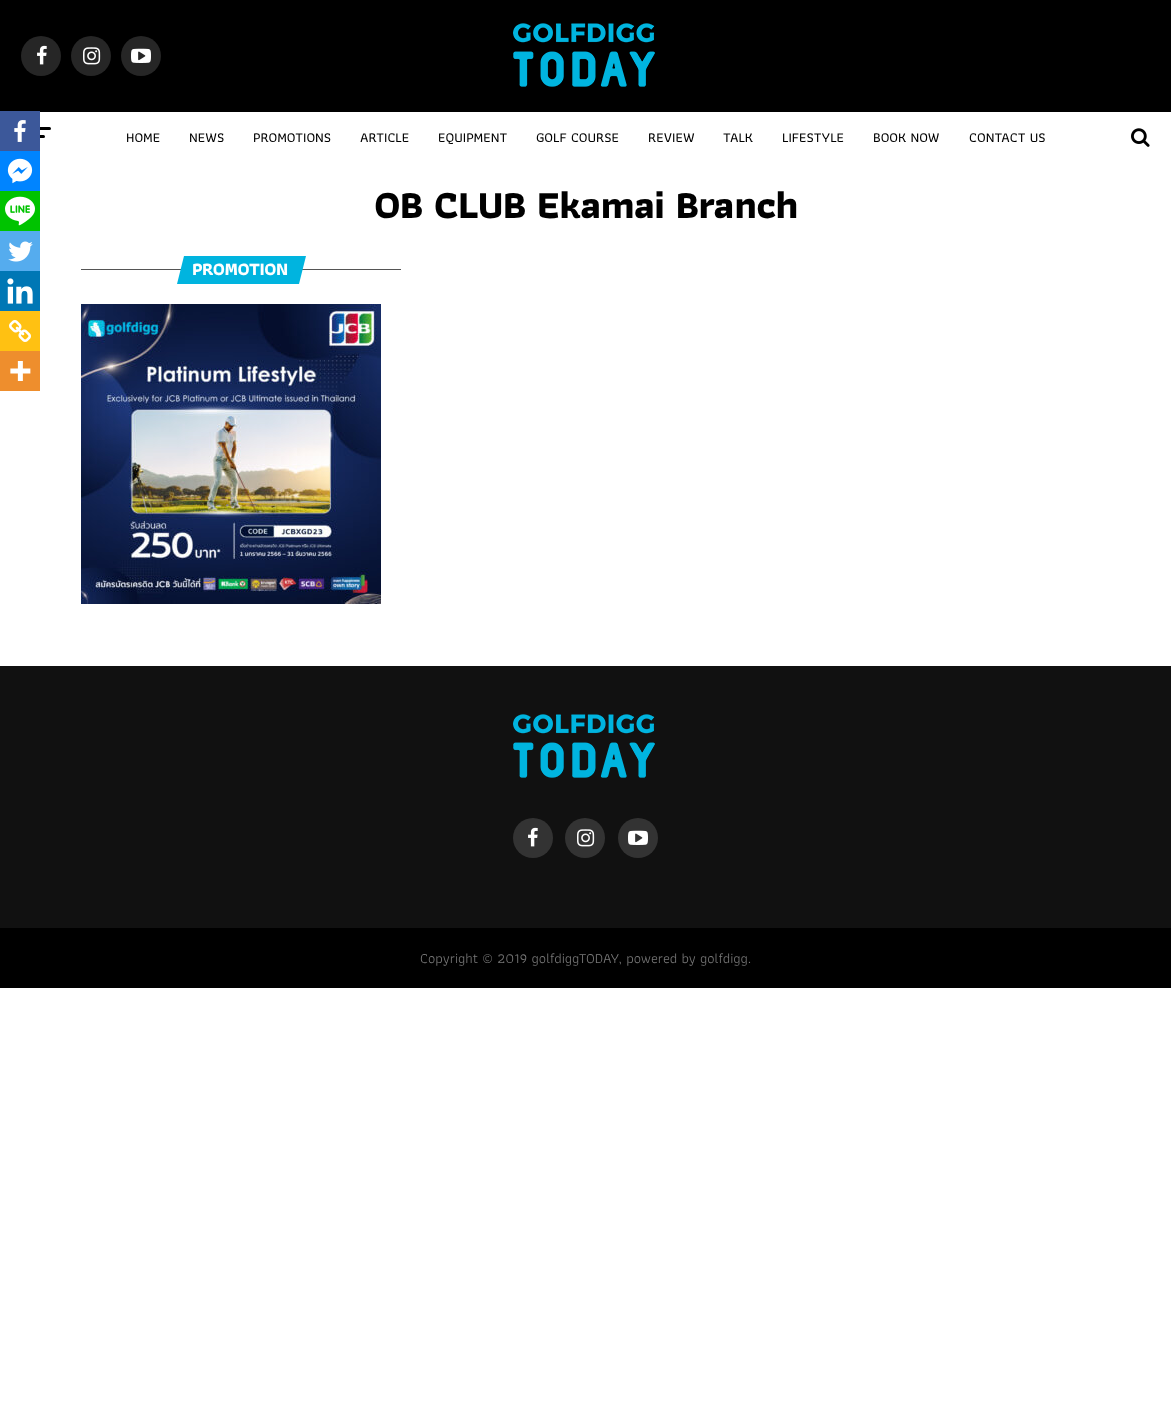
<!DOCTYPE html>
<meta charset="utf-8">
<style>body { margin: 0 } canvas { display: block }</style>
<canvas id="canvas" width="1171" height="1408"></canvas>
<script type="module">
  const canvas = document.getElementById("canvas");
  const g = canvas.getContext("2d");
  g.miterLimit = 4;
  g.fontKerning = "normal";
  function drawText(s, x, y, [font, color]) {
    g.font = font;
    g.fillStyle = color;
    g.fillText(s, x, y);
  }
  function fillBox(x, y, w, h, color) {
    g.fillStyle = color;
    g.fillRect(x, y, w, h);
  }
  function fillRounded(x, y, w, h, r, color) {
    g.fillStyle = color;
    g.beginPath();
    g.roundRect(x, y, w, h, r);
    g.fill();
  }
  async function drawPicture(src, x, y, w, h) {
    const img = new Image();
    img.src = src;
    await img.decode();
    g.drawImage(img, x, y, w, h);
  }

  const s1 = ["500 14px Athiti", "#000000"];
  const s2 = ["bold 40px Athiti", "#000000"];
  const s3 = ["bold 18.25px Athiti", "#FFFFFF"];
  const s4 = ["14.4px Athiti", "#777777"];

  fillBox(0, 0, 1171, 1408, "#FFFFFF");
  fillBox(0, 0, 1171, 112, "#000000");
  g.fillStyle = "#262626";
  g.beginPath();
  g.arc(41, 56, 20, 0, Math.PI * 2);
  g.fill();
  await drawPicture("pic1.png", 37, 45, 10, 20);
  g.beginPath();
  g.arc(91, 56, 20, 0, Math.PI * 2);
  g.fill();
  await drawPicture("pic2.png", 83, 47, 18, 18);
  g.beginPath();
  g.arc(141, 56, 20, 0, Math.PI * 2);
  g.fill();
  await drawPicture("pic3.png", 131, 48, 20, 15);
  await drawPicture("pic4.png", 513, 23, 142, 64);
  fillRounded(21, 127, 30, 3, 1.5, "#000000");
  fillRounded(21, 135, 24, 3, 1.5, "#000000");
  drawText("HOME", 126, 142, s1);
  drawText("NEWS", 189, 142, s1);
  drawText("PROMOTIONS", 253, 142, s1);
  drawText("ARTICLE", 360, 142, s1);
  drawText("EQUIPMENT", 438, 142, s1);
  drawText("GOLF COURSE", 536, 142, s1);
  drawText("REVIEW", 648, 142, s1);
  drawText("TALK", 723, 142, s1);
  drawText("LIFESTYLE", 782, 142, s1);
  drawText("BOOK NOW", 873, 142, s1);
  drawText("CONTACT US", 969, 142, s1);
  await drawPicture("pic5.png", 1131, 128, 19, 19);
  g.letterSpacing = "-0.8px";
  drawText("OB CLUB Ekamai Branch", 374, 218, s2);
  fillBox(0, 111, 40, 40, "#3C589A");
  await drawPicture("pic6.png", 14, 120, 12, 22);
  fillBox(0, 151, 40, 40, "#0084FF");
  await drawPicture("pic7.png", 7, 158, 26, 26);
  fillBox(0, 191, 40, 40, "#00C300");
  await drawPicture("pic8.png", 5, 196, 30, 30);
  fillBox(0, 231, 40, 40, "#55ACEE");
  await drawPicture("pic9.png", 8, 241, 25, 21);
  fillBox(0, 271, 40, 40, "#0077B5");
  await drawPicture("pic10.png", 7, 278, 26, 26);
  fillBox(0, 311, 40, 40, "#FFC112");
  await drawPicture("pic11.png", 9, 320, 22, 22);
  fillBox(0, 351, 40, 40, "#EE8E2D");
  await drawPicture("pic12.png", 10, 361, 21, 20);
  fillBox(81, 269, 320, 1, "#555555");
  g.fillStyle = "#00B4DF";
  g.beginPath();
  g.moveTo(184, 256);
  g.lineTo(306, 256);
  g.lineTo(299, 284);
  g.lineTo(177, 284);
  g.closePath();
  g.fill();
  g.letterSpacing = "-0.4px";
  drawText("PROMOTION", 192, 275, s3);
  await drawPicture("pic13.png", 81, 304, 300, 300);
  fillBox(0, 666, 1171, 262, "#111111");
  await drawPicture("pic14.png", 513, 714, 142, 64);
  g.fillStyle = "#333333";
  g.beginPath();
  g.arc(533, 838, 20, 0, Math.PI * 2);
  g.fill();
  await drawPicture("pic15.png", 528, 827, 10, 20);
  g.beginPath();
  g.arc(585, 838, 20, 0, Math.PI * 2);
  g.fill();
  await drawPicture("pic16.png", 577, 829, 18, 18);
  g.beginPath();
  g.arc(638, 838, 20, 0, Math.PI * 2);
  g.fill();
  await drawPicture("pic17.png", 628, 830, 20, 15);
  fillBox(0, 928, 1171, 60, "#000000");
  g.letterSpacing = "0px";
  drawText("Copyright © 2019 golfdiggTODAY, powered by golfdigg.", 420, 963, s4);
</script>
